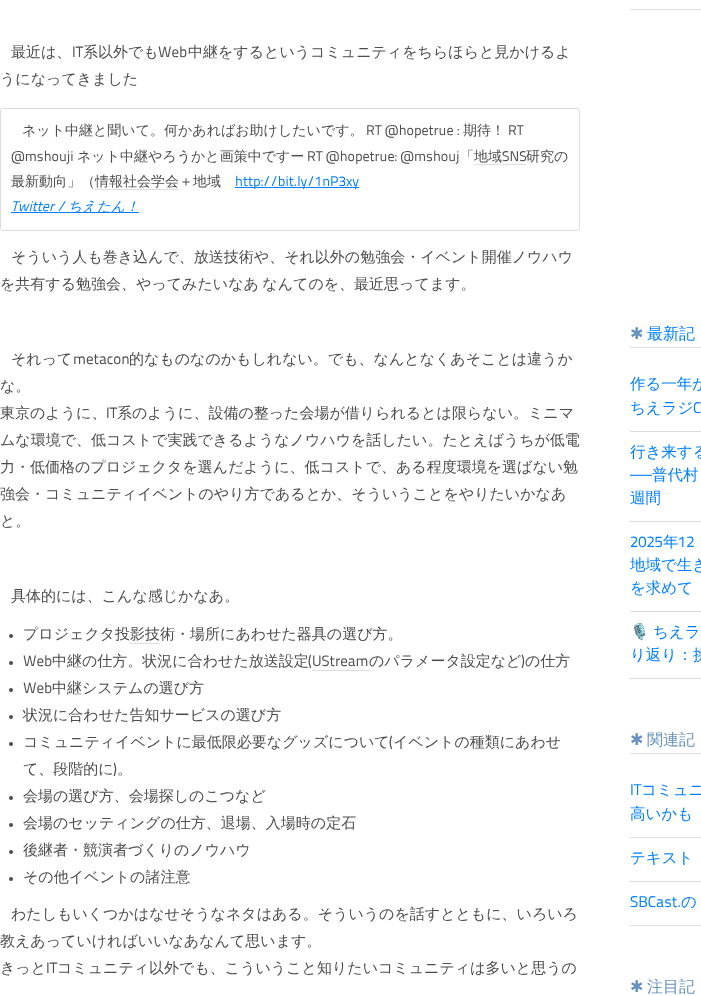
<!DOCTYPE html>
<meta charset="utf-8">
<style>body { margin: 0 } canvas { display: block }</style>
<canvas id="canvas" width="701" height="996"></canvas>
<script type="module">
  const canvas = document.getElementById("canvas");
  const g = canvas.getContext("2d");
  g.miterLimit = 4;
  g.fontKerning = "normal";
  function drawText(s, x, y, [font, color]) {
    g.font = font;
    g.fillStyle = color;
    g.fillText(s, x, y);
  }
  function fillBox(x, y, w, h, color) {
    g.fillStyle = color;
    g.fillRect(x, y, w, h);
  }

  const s1 = ["500 15px WenQuanYi Zen Hei", "#4D4D4D"];
  const s2 = ["15px 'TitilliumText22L'", "#4D4D4D"];
  const s3 = ["500 14px WenQuanYi Zen Hei", "#4D4D4D"];
  const s4 = ["14px 'TitilliumText22L'", "#4D4D4D"];
  const s5 = ["14px 'TitilliumText22L'", "#0080FF"];
  const s6 = ["italic 14px 'TitilliumText22L'", "#0080FF"];
  const s7 = ["italic 500 14px WenQuanYi Zen Hei", "#0080FF"];
  const s8 = ["16px DejaVu Sans", "#6692C0"];
  const s9 = ["500 16px WenQuanYi Zen Hei", "#0080FF"];
  const s10 = ["500 15.5px WenQuanYi Zen Hei", "#0080FF"];
  const s11 = ["15.5px 'TitilliumText22L'", "#0080FF"];
  const s12 = ["15.5px Liberation Sans", "#0080FF"];
  const s13 = ["15.5px Noto Color Emoji", "#0080FF"];
  const s14 = ["500 16px WenQuanYi Zen Hei", "#6692C0"];

  fillBox(0, 0, 701, 996, "#FFFFFF");
  drawText("最近は、", 11, 57, s1);
  drawText("IT", 72, 57, s2);
  drawText("系以外でも", 83, 57, s1);
  drawText("Web", 158, 57, s2);
  drawText("中継をするというコミュニティをちらほらと見かけるよ", 188, 57, s1);
  drawText("うになってきました", 0, 84, s1);
  g.beginPath();
  g.roundRect(0.5, 108.5, 579, 122, 2.5);
  g.strokeStyle = "#DDDDDD";
  g.stroke();
  drawText("ネット中継と聞いて。何かあればお助けしたいです。", 22, 135, s3);
  drawText("RT @hopetrue :", 366, 135, s4);
  drawText("期待！", 463, 135, s3);
  drawText("RT", 508, 135, s4);
  drawText("@mshouji", 11, 161, s4);
  drawText("ネット中継やろうかと画策中ですー", 77, 161, s3);
  drawText("RT @hopetrue: @mshouj", 307, 161, s4);
  drawText("「地域", 460, 161, s3);
  drawText("SNS", 502, 161, s4);
  fillBox(474, 164, 52, 1, "#DEDEDE");
  drawText("研究の", 526, 161, s3);
  drawText("最新動向」（情報社会学会＋地域", 11, 186, s3);
  fillBox(235, 187, 124, 1, "#0080FF");
  drawText("http://bit.ly/1nP3xy", 235, 186, s5);
  fillBox(95, 189, 84, 1, "#DEDEDE");
  drawText("Twitter /", 11, 211, s6);
  fillBox(11, 212, 128, 1, "#0080FF");
  drawText("ちえたん！", 68, 211, s7);
  drawText("そういう人も巻き込んで、放送技術や、それ以外の勉強会・イベント開催ノウハウ", 11, 262, s1);
  g.wordSpacing = "-1px";
  drawText("を共有する勉強会、やってみたいなあ なんてのを、最近思ってます。", 0, 289, s1);
  g.wordSpacing = "0px";
  drawText("それって", 11, 364, s1);
  drawText("metacon", 73, 364, s2);
  drawText("的なものなのかもしれない。でも、なんとなくあそことは違うか", 129, 364, s1);
  drawText("な。", 0, 391, s1);
  drawText("東京のように、", 0, 418, s1);
  drawText("IT", 106, 418, s2);
  drawText("系のように、設備の整った会場が借りられるとは限らない。ミニマ", 117, 418, s1);
  drawText("ムな環境で、低コストで実践できるようなノウハウを話したい。たとえばうちが低電", 0, 445, s1);
  drawText("力・低価格のプロジェクタを選んだように、低コストで、ある程度環境を選ばない勉", 0, 472, s1);
  drawText("強会・コミュニティイベントのやり方であるとか、そういうことをやりたいかなあ", 0, 499, s1);
  drawText("と。", 0, 526, s1);
  drawText("具体的には、こんな感じかなあ。", 11, 601, s1);
  g.beginPath();
  g.arc(11, 636, 2, 0, Math.PI * 2);
  g.fill();
  drawText("プロジェクタ投影技術・場所にあわせた器具の選び方。", 23, 639, s1);
  fillBox(130, 643, 30, 1, "#DEDEDE");
  g.fillStyle = "#4D4D4D";
  g.beginPath();
  g.arc(11, 663, 2, 0, Math.PI * 2);
  g.fill();
  drawText("Web", 23, 666, s2);
  drawText("中継の仕方。状況に合わせた放送設定", 52, 666, s1);
  drawText("(UStream", 308, 666, s2);
  drawText("のパラメータ設定など", 369, 666, s1);
  drawText(")", 521, 666, s2);
  drawText("の仕方", 525, 666, s1);
  fillBox(312, 670, 57, 1, "#DEDEDE");
  g.fillStyle = "#4D4D4D";
  g.beginPath();
  g.arc(11, 690, 2, 0, Math.PI * 2);
  g.fill();
  drawText("Web", 23, 693, s2);
  drawText("中継システムの選び方", 52, 693, s1);
  g.beginPath();
  g.arc(11, 717, 2, 0, Math.PI * 2);
  g.fill();
  drawText("状況に合わせた告知サービスの選び方", 23, 720, s1);
  g.beginPath();
  g.arc(11, 744, 2, 0, Math.PI * 2);
  g.fill();
  drawText("コミュニティイベントに最低限必要なグッズについて", 23, 747, s1);
  drawText("(", 389, 747, s2);
  drawText("イベントの種類にあわせ", 393, 747, s1);
  drawText("て、段階的に", 23, 774, s1);
  drawText(")", 113, 774, s2);
  drawText("。", 117, 774, s1);
  g.beginPath();
  g.arc(11, 798, 2, 0, Math.PI * 2);
  g.fill();
  drawText("会場の選び方、会場探しのこつなど", 23, 801, s1);
  g.beginPath();
  g.arc(11, 825, 2, 0, Math.PI * 2);
  g.fill();
  drawText("会場のセッティングの仕方、退場、入場時の定石", 23, 828, s1);
  g.beginPath();
  g.arc(11, 852, 2, 0, Math.PI * 2);
  g.fill();
  drawText("後継者・競演者づくりのノウハウ", 23, 855, s1);
  g.beginPath();
  g.arc(11, 879, 2, 0, Math.PI * 2);
  g.fill();
  drawText("その他イベントの諸注意", 23, 882, s1);
  drawText("わたしもいくつかはなせそうなネタはある。そういうのを話すとともに、いろいろ", 11, 919, s1);
  drawText("教えあっていければいいなあなんて思います。", 0, 946, s1);
  drawText("きっと", 0, 973, s1);
  drawText("IT", 46, 973, s2);
  drawText("コミュニティ以外でも、こういうこと知りたいコミュニティは多いと思うの", 57, 973, s1);
  fillBox(630, 9, 71, 1, "#DFDFDF");
  fillBox(630, 347, 71, 1, "#DFDFDF");
  drawText("✱", 630, 339, s8);
  drawText("最新記", 647, 339, s9);
  fillBox(630, 431, 71, 1, "#DDDDDD");
  drawText("作る一年か", 630, 389, s10);
  drawText("ちえラジ", 630, 413, s10);
  drawText("C", 693, 413, s11);
  fillBox(630, 521, 71, 1, "#DDDDDD");
  drawText("行き来する", 630, 457, s10);
  drawText("──", 630, 480, s12);
  drawText("普代村", 652, 480, s10);
  drawText("週間", 630, 503, s10);
  fillBox(630, 611, 71, 1, "#DDDDDD");
  drawText("2025", 630, 547, s11);
  drawText("年", 663, 547, s10);
  drawText("12", 678, 547, s11);
  drawText("地域で生き", 630, 570, s10);
  drawText("を求めて", 630, 593, s10);
  fillBox(630, 678, 71, 1, "#DDDDDD");
  drawText("🎙️", 630, 637, s13);
  drawText("ちえラ", 653, 637, s10);
  drawText("り返り：挑", 630, 660, s10);
  fillBox(630, 753, 71, 1, "#DFDFDF");
  drawText("✱", 630, 745, s8);
  drawText("関連記", 647, 745, s14);
  fillBox(630, 837, 71, 1, "#DDDDDD");
  drawText("IT", 630, 795, s11);
  drawText("コミュニ", 641, 795, s10);
  drawText("高いかも", 630, 819, s10);
  fillBox(630, 881, 71, 1, "#DDDDDD");
  drawText("テキスト", 630, 863, s10);
  fillBox(630, 925, 71, 1, "#DDDDDD");
  drawText("SBCast.", 630, 907, s11);
  drawText("の", 681, 907, s10);
  drawText("✱", 630, 992, s8);
  drawText("注目記", 647, 992, s14);
</script>
